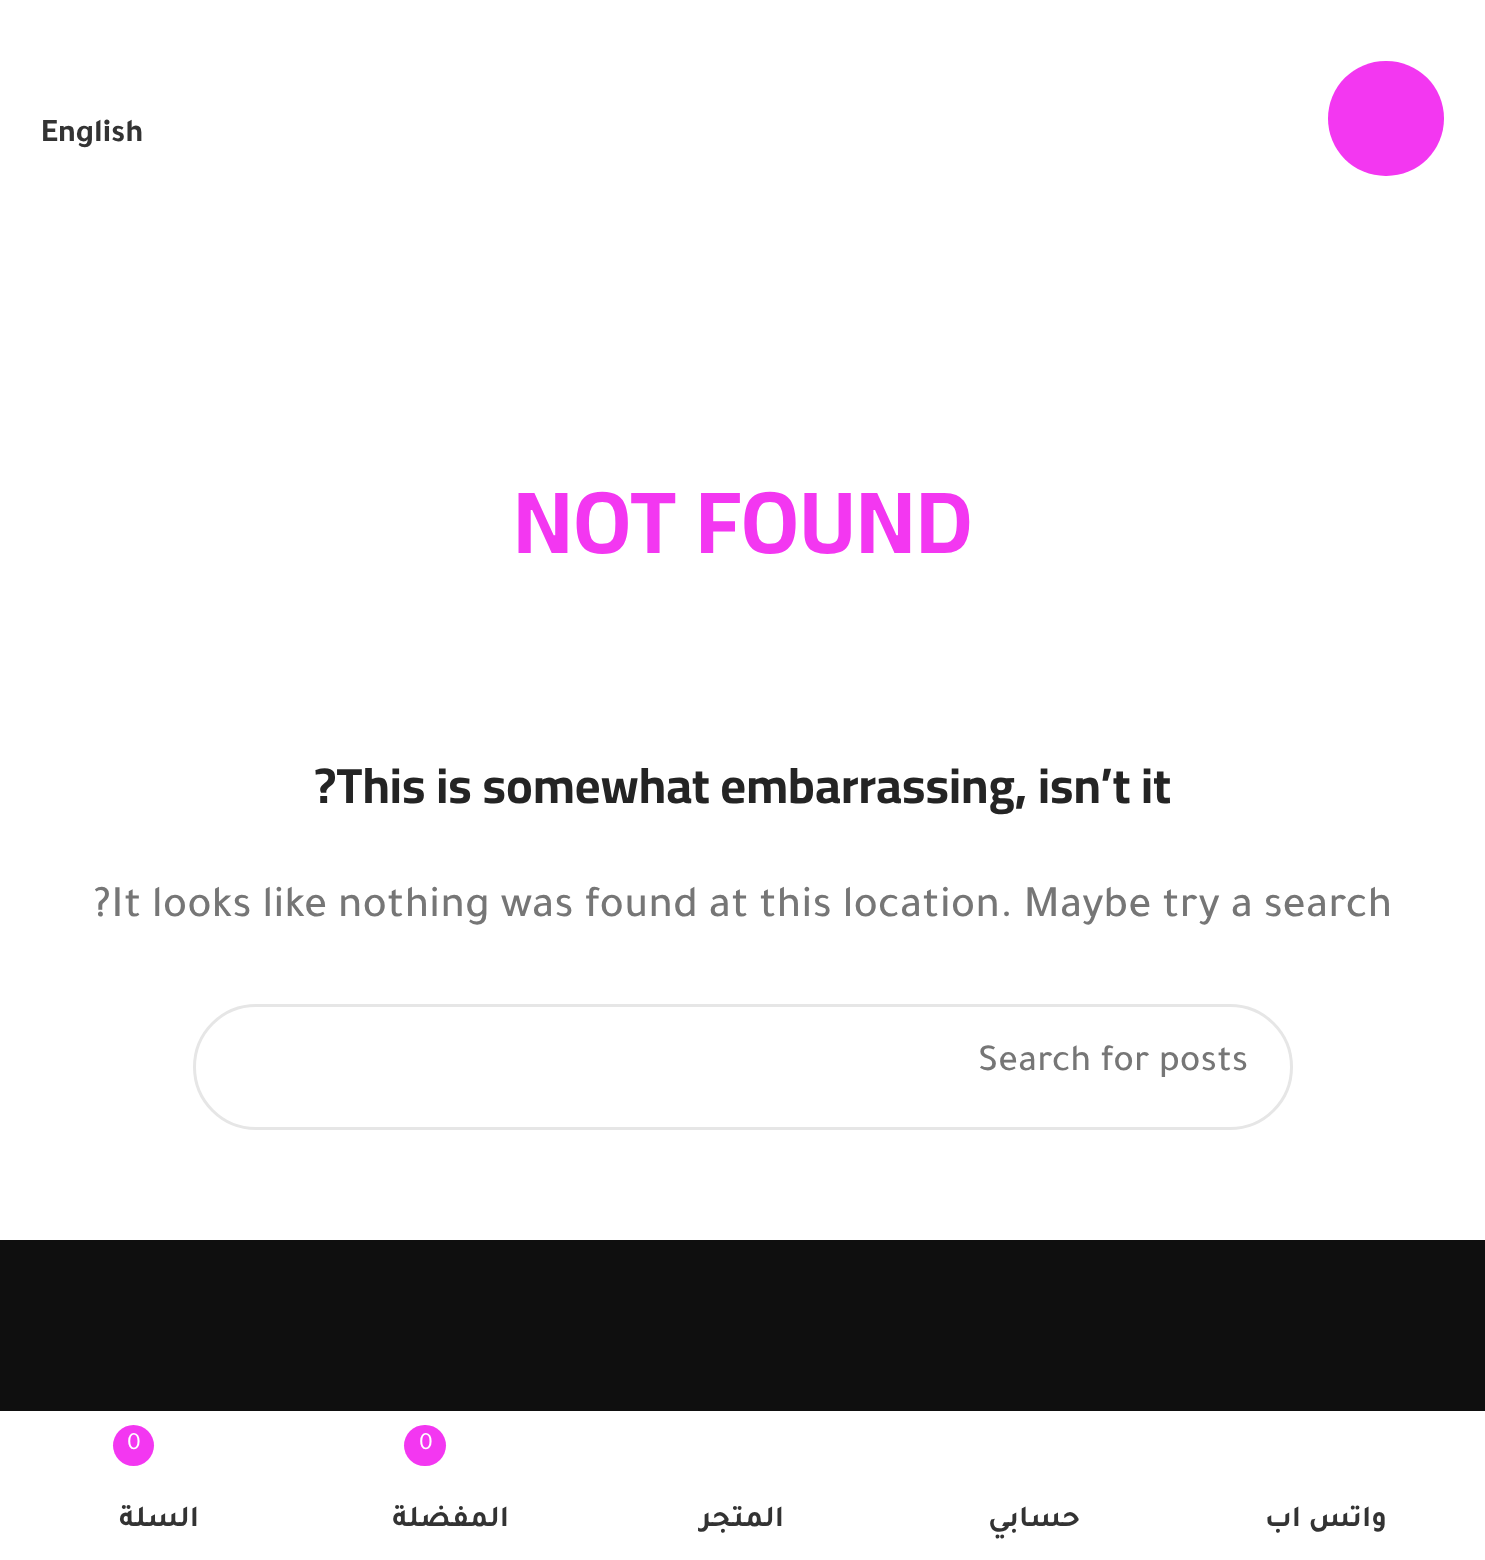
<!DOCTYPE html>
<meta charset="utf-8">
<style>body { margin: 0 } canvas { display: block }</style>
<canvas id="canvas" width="1485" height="1560"></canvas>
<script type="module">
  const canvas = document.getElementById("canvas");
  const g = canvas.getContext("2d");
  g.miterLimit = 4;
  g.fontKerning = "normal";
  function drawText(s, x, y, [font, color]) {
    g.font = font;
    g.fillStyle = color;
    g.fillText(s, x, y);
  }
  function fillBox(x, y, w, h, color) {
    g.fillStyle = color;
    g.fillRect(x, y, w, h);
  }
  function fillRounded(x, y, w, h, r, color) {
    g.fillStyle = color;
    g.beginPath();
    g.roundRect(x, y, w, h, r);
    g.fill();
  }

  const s1 = ["bold 33px Tajawal", "#333333"];
  const s2 = ["bold 88px Cairo", "#F337F1"];
  const s3 = ["bold 49.5px Cairo", "#242424"];
  const s4 = ["500 45.4px Tajawal", "#767676"];
  const s5 = ["500 38.5px Tajawal", "#767676"];
  const s6 = ["25px Tajawal", "#FFFFFF"];
  const s7 = ["bold 30.25px Tajawal", "#333333"];

  fillBox(0, 0, 1485, 1560, "#FFFFFF");
  drawText("English", 41, 141, s1);
  fillRounded(1328, 61, 116, 115, 57.5, "#F337F1");
  drawText("NOT FOUND", 513, 553, s2);
  drawText("?This is somewhat embarrassing, isn’t it", 314, 803, s3);
  drawText("?It looks like nothing was found at this location. Maybe try a search", 93, 916, s4);
  g.beginPath();
  g.roundRect(194.5, 1005.5, 1097, 123, 61.5);
  g.strokeStyle = "#E6E6E6";
  g.lineWidth = 3;
  g.stroke();
  drawText("Search for posts", 978, 1070, s5);
  fillBox(0, 1240, 1485, 171, "#0F0F0F");
  g.fillStyle = "#F337F1";
  g.beginPath();
  g.arc(133.5, 1445.5, 20.5, 0, Math.PI * 2);
  g.fill();
  drawText("0", 127, 1449, s6);
  g.direction = "rtl";
  drawText("السلة", 199, 1526, s7);
  fillRounded(404, 1425, 42, 41, 20.5, "#F337F1");
  g.direction = "ltr";
  drawText("0", 419, 1449, s6);
  g.direction = "rtl";
  drawText("المفضلة", 509, 1526, s7);
  drawText("المتجر", 784, 1526, s7);
  drawText("حسابي", 1080, 1526, s7);
  drawText("واتس اب", 1387, 1526, s7);
</script>
